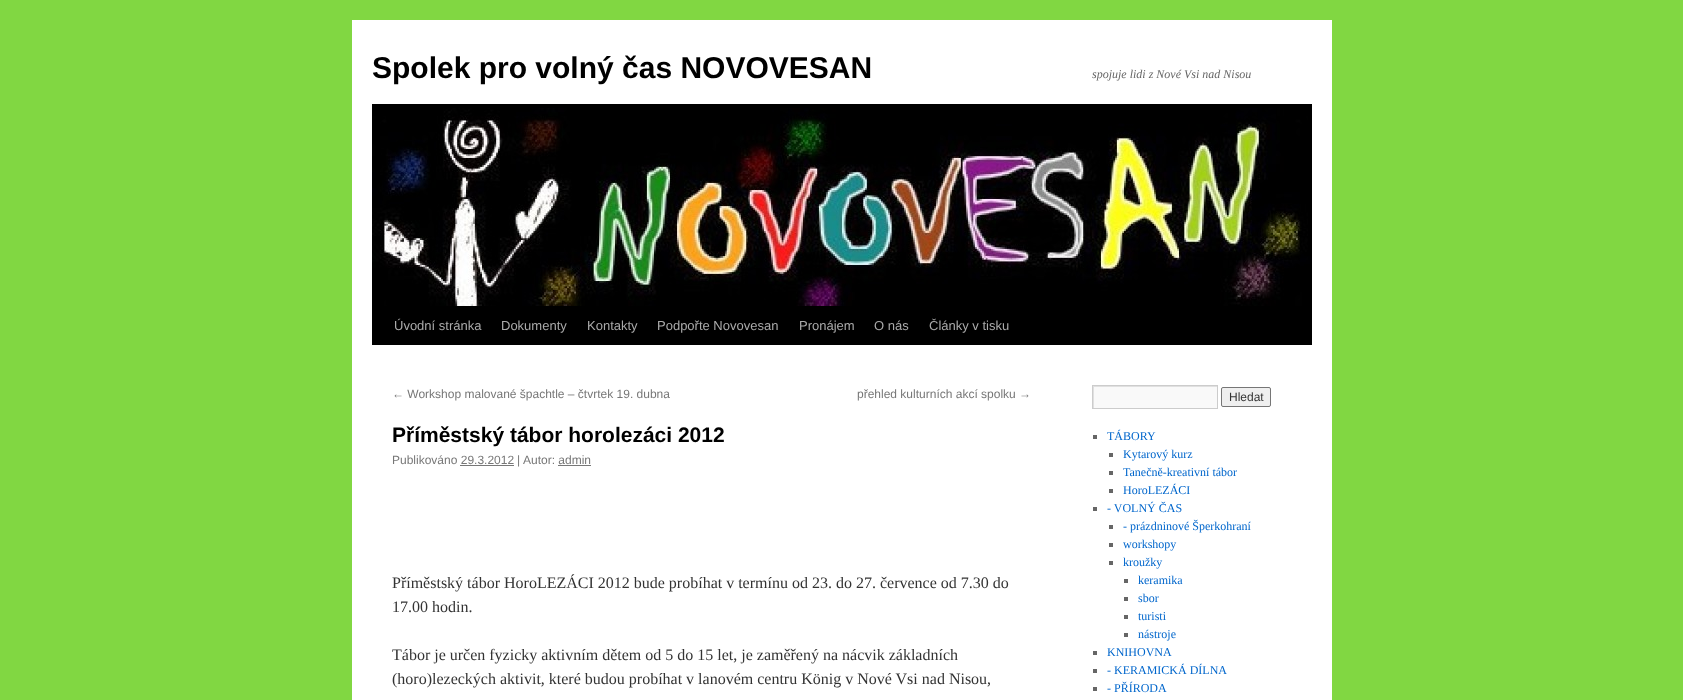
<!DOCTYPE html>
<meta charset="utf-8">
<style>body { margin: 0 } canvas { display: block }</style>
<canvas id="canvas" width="1683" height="700"></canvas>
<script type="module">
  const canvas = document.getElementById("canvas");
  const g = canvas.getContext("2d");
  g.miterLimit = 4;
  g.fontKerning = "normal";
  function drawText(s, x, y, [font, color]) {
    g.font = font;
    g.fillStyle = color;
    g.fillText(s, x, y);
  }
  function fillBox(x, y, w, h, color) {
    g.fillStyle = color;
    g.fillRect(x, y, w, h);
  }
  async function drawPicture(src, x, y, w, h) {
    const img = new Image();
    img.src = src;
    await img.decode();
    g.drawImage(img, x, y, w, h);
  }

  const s1 = ["bold 30px Liberation Sans", "#000000"];
  const s2 = ["italic 12px Liberation Serif", "#666666"];
  const s3 = ["13px Liberation Sans", "#AAAAAA"];
  const s4 = ["12px Liberation Sans", "#777777"];
  const s5 = ["bold 21px Liberation Sans", "#000000"];
  const s6 = ["16px Liberation Serif", "#333333"];
  const s7 = ["12px Liberation Sans", "#333333"];
  const s8 = ["12px Liberation Serif", "#0066CC"];

  fillBox(0, 0, 1683, 700, "#81D742");
  fillBox(352, 20, 980, 680, "#FFFFFF");
  drawText("Spolek pro volný čas NOVOVESAN", 372, 78, s1);
  drawText("spojuje lidi z Nové Vsi nad Nisou", 1092, 78, s2);
  fillBox(372, 104, 940, 4, "#000000");
  fillBox(372, 306, 940, 39, "#000000");
  await drawPicture("pic1.png", 372, 108, 940, 198);
  drawText("Úvodní stránka", 394, 330, s3);
  drawText("Dokumenty", 501, 330, s3);
  drawText("Kontakty", 587, 330, s3);
  drawText("Podpořte Novovesan", 657, 330, s3);
  drawText("Pronájem", 799, 330, s3);
  drawText("O nás", 874, 330, s3);
  drawText("Články v tisku", 929, 330, s3);
  drawText("← Workshop malované špachtle – čtvrtek 19. dubna", 392, 398, s4);
  drawText("přehled kulturních akcí spolku →", 857, 398, s4);
  drawText("Příměstský tábor horolezáci 2012", 392, 442, s5);
  drawText("Publikováno 29.3.2012", 392, 464, s4);
  drawText("|", 517, 464, s4);
  drawText("Autor: admin", 523, 464, s4);
  fillBox(460, 465, 54, 1, "#777777");
  fillBox(558, 465, 33, 1, "#777777");
  drawText("Příměstský tábor HoroLEZÁCI 2012 bude probíhat v termínu od 23. do 27. července od 7.30 do", 392, 588, s6);
  drawText("17.00 hodin.", 392, 612, s6);
  drawText("Tábor je určen fyzicky aktivním dětem od 5 do 15 let, je zaměřený na nácvik základních", 392, 660, s6);
  drawText("(horo)lezeckých aktivit, které budou probíhat v lanovém centru König v Nové Vsi nad Nisou,", 392, 684, s6);
  fillBox(1094, 387, 123, 21, "#F9F9F9");
  g.save();
  g.beginPath();
  g.rect(1093, 386, 124, 22);
  g.clip();
  g.fillStyle = "#E0E0E0";
  g.beginPath();
  g.moveTo(994, 287);
  g.lineTo(1316, 287);
  g.lineTo(1316, 507);
  g.lineTo(994, 507);
  g.closePath();
  g.moveTo(1094, 387);
  g.lineTo(1218, 387);
  g.lineTo(1218, 409);
  g.lineTo(1094, 409);
  g.closePath();
  g.fill("evenodd");
  g.restore();
  g.strokeStyle = "#CCCCCC";
  g.strokeRect(1092.5, 385.5, 125, 23);
  g.fillStyle = "#EFEFEF";
  g.beginPath();
  g.roundRect(1221.5, 387.5, 49, 19, 1.5);
  g.fill();
  g.strokeStyle = "#767676";
  g.stroke();
  drawText("Hledat", 1229, 401, s7);
  fillBox(1093, 435, 4, 4, "#666666");
  drawText("TÁBORY", 1107, 440, s8);
  fillBox(1109, 453, 4, 4, "#666666");
  drawText("Kytarový kurz", 1123, 458, s8);
  fillBox(1109, 471, 4, 4, "#666666");
  drawText("Tanečně-kreativní tábor", 1123, 476, s8);
  fillBox(1109, 489, 4, 4, "#666666");
  drawText("HoroLEZÁCI", 1123, 494, s8);
  fillBox(1093, 507, 4, 4, "#666666");
  drawText("- VOLNÝ ČAS", 1107, 512, s8);
  fillBox(1109, 525, 4, 4, "#666666");
  drawText("- prázdninové Šperkohraní", 1123, 530, s8);
  fillBox(1109, 543, 4, 4, "#666666");
  drawText("workshopy", 1123, 548, s8);
  fillBox(1109, 561, 4, 4, "#666666");
  drawText("kroužky", 1123, 566, s8);
  fillBox(1124, 579, 4, 4, "#666666");
  drawText("keramika", 1138, 584, s8);
  fillBox(1124, 597, 4, 4, "#666666");
  drawText("sbor", 1138, 602, s8);
  fillBox(1124, 615, 4, 4, "#666666");
  drawText("turisti", 1138, 620, s8);
  fillBox(1124, 633, 4, 4, "#666666");
  drawText("nástroje", 1138, 638, s8);
  fillBox(1093, 651, 4, 4, "#666666");
  drawText("KNIHOVNA", 1107, 656, s8);
  fillBox(1093, 669, 4, 4, "#666666");
  drawText("- KERAMICKÁ DÍLNA", 1107, 674, s8);
  fillBox(1093, 687, 4, 4, "#666666");
  drawText("- PŘÍRODA", 1107, 692, s8);
</script>
